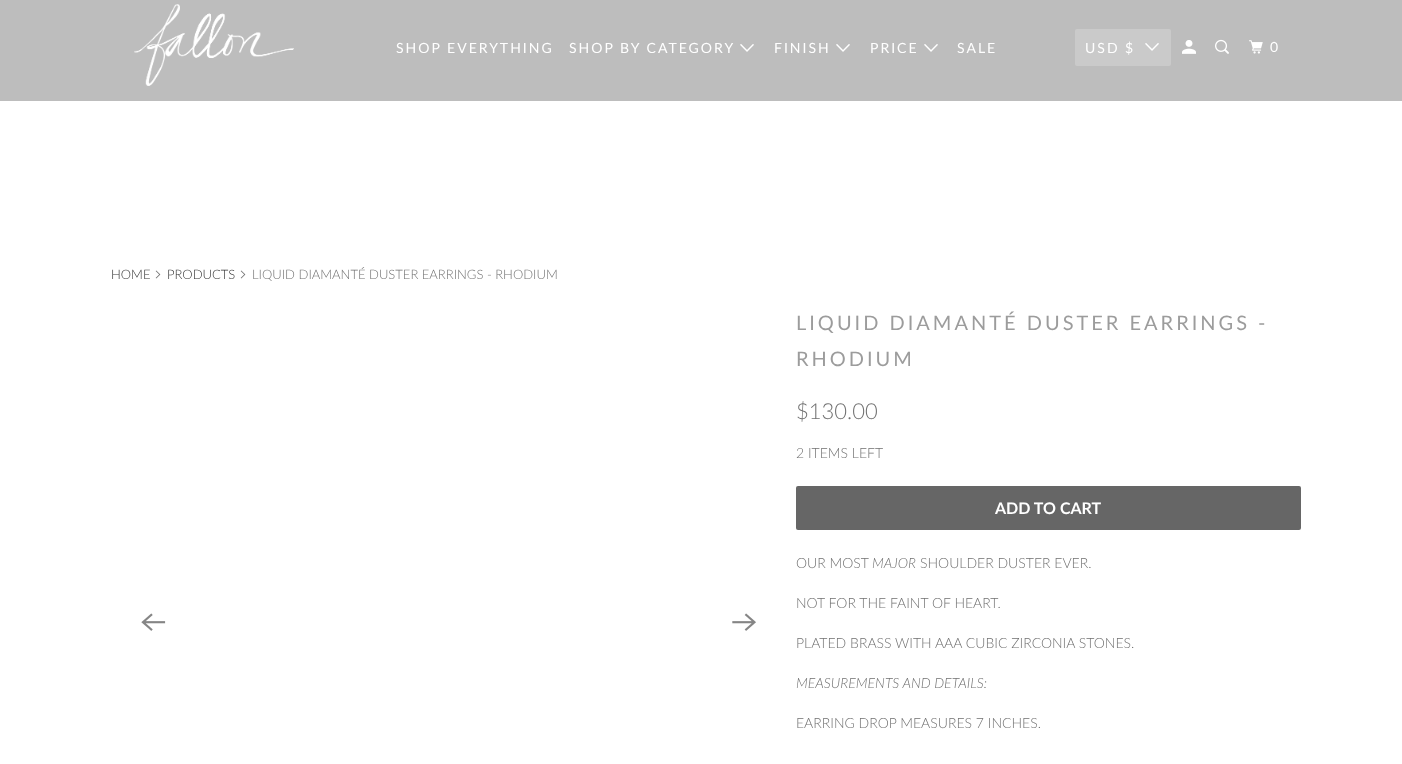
<!DOCTYPE html>
<meta charset="utf-8">
<style>body { margin: 0 } canvas { display: block }</style>
<canvas id="canvas" width="1402" height="764"></canvas>
<script type="module">
  const canvas = document.getElementById("canvas");
  const g = canvas.getContext("2d");
  g.miterLimit = 4;
  g.fontKerning = "normal";
  function drawText(s, x, y, [font, color]) {
    g.font = font;
    g.fillStyle = color;
    g.fillText(s, x, y);
  }
  function fillBox(x, y, w, h, color) {
    g.fillStyle = color;
    g.fillRect(x, y, w, h);
  }
  function fillRounded(x, y, w, h, r, color) {
    g.fillStyle = color;
    g.beginPath();
    g.roundRect(x, y, w, h, r);
    g.fill();
  }
  async function drawPicture(src, x, y, w, h) {
    const img = new Image();
    img.src = src;
    await img.decode();
    g.drawImage(img, x, y, w, h);
  }

  const s1 = ["14px Lato", "#FFFFFF"];
  const s2 = ["300 13px Lato", "#323232"];
  const s3 = ["300 13px Lato", "#717171"];
  const s4 = ["20px Lato", "#9C9C9C"];
  const s5 = ["300 22px Lato", "#717171"];
  const s6 = ["300 14px Lato", "#717171"];
  const s7 = ["bold 16px Lato", "#FFFFFF"];
  const s8 = ["italic 300 14px Lato", "#717171"];

  fillBox(0, 0, 1402, 764, "#FFFFFF");
  fillBox(0, 0, 1402, 101, "#BDBDBD");
  await drawPicture("pic1.png", 134, 4, 160, 82);
  g.letterSpacing = "2px";
  drawText("SHOP EVERYTHING", 396, 53, s1);
  drawText("SHOP BY CATEGORY", 569, 53, s1);
  await drawPicture("pic2.png", 740, 44, 14, 8);
  drawText("FINISH", 774, 53, s1);
  await drawPicture("pic2.png", 836, 44, 14, 8);
  drawText("PRICE", 870, 53, s1);
  await drawPicture("pic2.png", 924, 44, 14, 8);
  drawText("SALE", 957, 53, s1);
  fillRounded(1075, 29, 96, 37, 2, "#CACACA");
  drawText("USD $", 1085, 53, s1);
  await drawPicture("pic3.png", 1145, 43, 14, 8);
  await drawPicture("pic4.png", 1182, 40, 14, 14);
  await drawPicture("pic5.png", 1215, 39, 14, 15);
  await drawPicture("pic6.png", 1249, 40, 14, 14);
  drawText("0", 1270, 52, s1);
  g.letterSpacing = "0px";
  drawText("HOME", 111, 279, s2);
  await drawPicture("pic7.png", 155, 270, 6, 9);
  drawText("PRODUCTS", 167, 279, s2);
  await drawPicture("pic7.png", 240, 270, 6, 9);
  drawText("LIQUID DIAMANTÉ DUSTER EARRINGS - RHODIUM", 252, 279, s3);
  await drawPicture("pic8.png", 141, 613, 25, 18);
  await drawPicture("pic9.png", 732, 613, 24, 18);
  g.letterSpacing = "3px";
  drawText("LIQUID DIAMANTÉ DUSTER EARRINGS -", 796, 330, s4);
  drawText("RHODIUM", 796, 366, s4);
  g.letterSpacing = "0px";
  drawText("$130.00", 796, 419, s5);
  drawText("2 ITEMS LEFT", 796, 458, s6);
  fillRounded(796, 486, 505, 44, 2, "#666666");
  drawText("ADD TO CART", 995, 514, s7);
  drawText("OUR MOST", 796, 568, s6);
  drawText("MAJOR", 872, 568, s8);
  drawText("SHOULDER DUSTER EVER.", 920, 568, s6);
  drawText("NOT FOR THE FAINT OF HEART.", 796, 608, s6);
  drawText("PLATED BRASS WITH AAA CUBIC ZIRCONIA STONES.", 796, 648, s6);
  drawText("MEASUREMENTS AND DETAILS:", 796, 688, s8);
  drawText("EARRING DROP MEASURES 7 INCHES.", 796, 728, s6);
</script>
